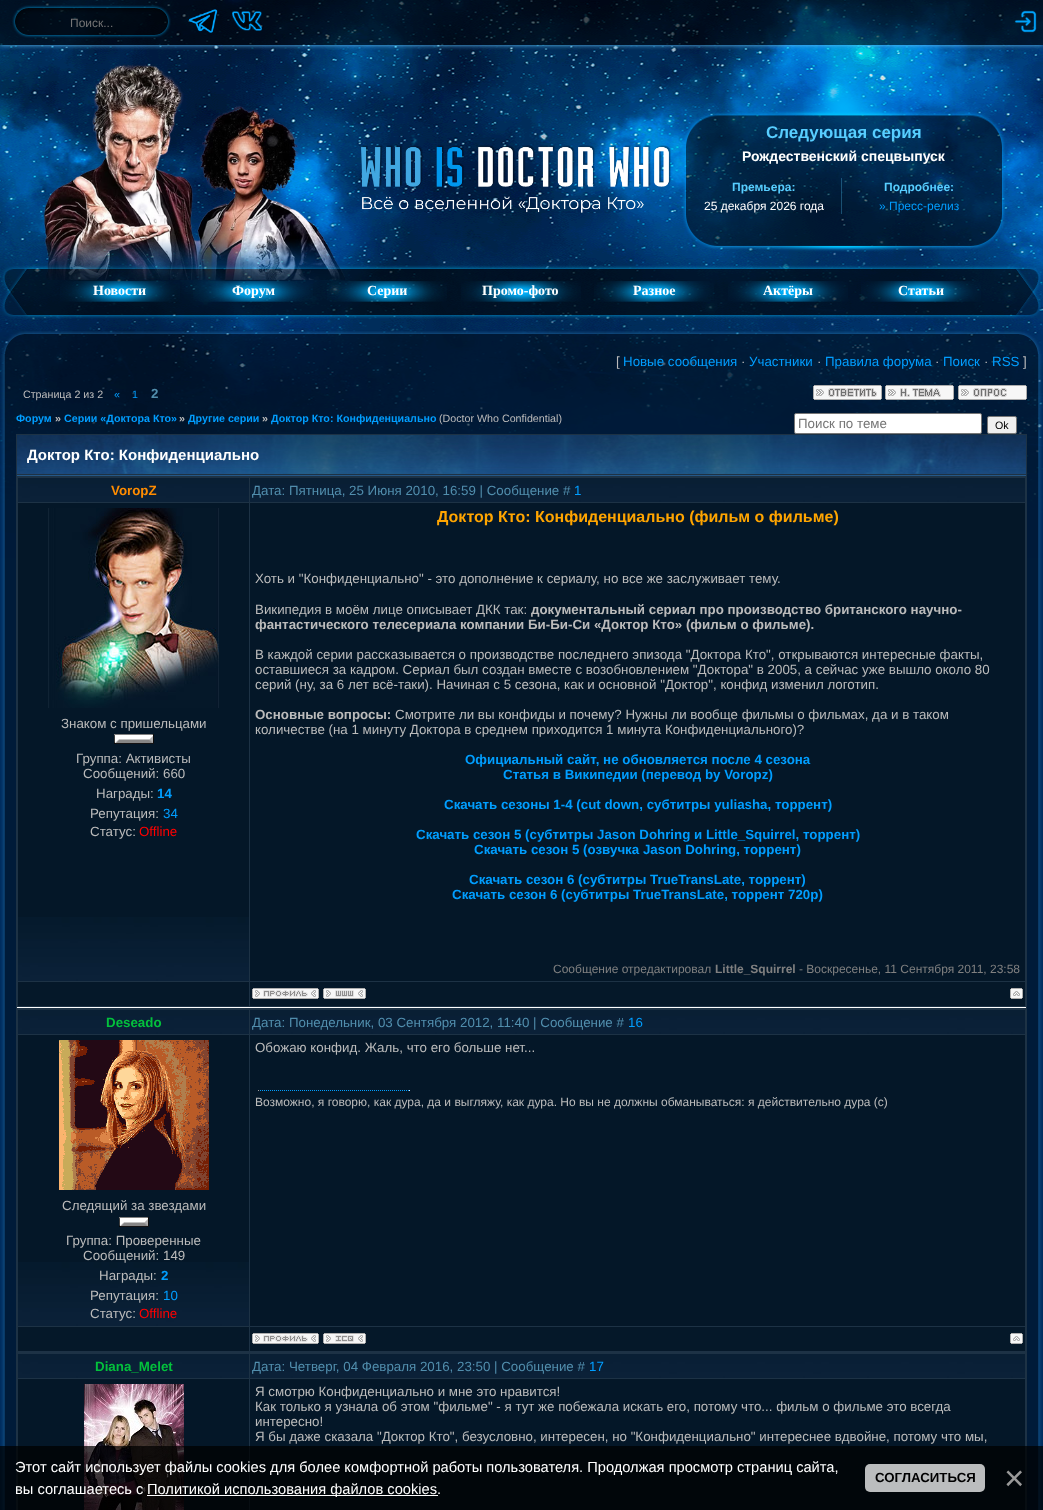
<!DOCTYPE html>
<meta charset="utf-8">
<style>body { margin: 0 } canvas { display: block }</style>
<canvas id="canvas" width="1043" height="1510"></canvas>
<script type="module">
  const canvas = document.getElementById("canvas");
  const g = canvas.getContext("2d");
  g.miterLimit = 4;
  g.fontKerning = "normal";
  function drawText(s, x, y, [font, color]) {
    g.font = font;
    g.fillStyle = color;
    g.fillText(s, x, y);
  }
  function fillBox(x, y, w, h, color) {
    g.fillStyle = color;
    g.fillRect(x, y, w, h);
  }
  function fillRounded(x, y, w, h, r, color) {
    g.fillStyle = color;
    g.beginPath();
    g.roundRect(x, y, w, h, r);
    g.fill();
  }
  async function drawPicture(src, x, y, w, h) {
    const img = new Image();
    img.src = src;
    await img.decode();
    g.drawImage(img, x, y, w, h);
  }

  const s1 = ["12px Liberation Sans", "#757575"];
  const s2 = ["bold 17px Liberation Sans", "#57CEFF"];
  const s3 = ["bold 14px Liberation Sans", "#FFFFFF"];
  const s4 = ["bold 12px Liberation Sans", "#57CEFF"];
  const s5 = ["12px Liberation Sans", "#FFFFFF"];
  const s6 = ["12px Liberation Sans", "#009EFF"];
  const s7 = ["bold 14px Liberation Serif", "#FFFFFF"];
  const s8 = ["13.33px Liberation Sans", "#BBBBBB"];
  const s9 = ["13.33px Liberation Sans", "#009EFF"];
  const s10 = ["10.7px Liberation Sans", "#BBBBBB"];
  const s11 = ["10.7px Liberation Sans", "#009EFF"];
  const s12 = ["bold 13.33px Liberation Sans", "#518EAD"];
  const s13 = ["bold 10.7px Liberation Sans", "#009EFF"];
  const s14 = ["bold 10.7px Liberation Sans", "#BBBBBB"];
  const s15 = ["13.33px Liberation Sans", "#757575"];
  const s16 = ["10.7px Liberation Sans", "#000000"];
  const s17 = ["bold 15px Liberation Sans", "#FFFFFF"];
  const s18 = ["bold 13.33px Liberation Sans", "#FF8C00"];
  const s19 = ["13.33px Liberation Sans", "#518EAD"];
  const s20 = ["bold 13.33px Liberation Sans", "#009EFF"];
  const s21 = ["13.33px Liberation Sans", "#FF0000"];
  const s22 = ["bold 16px Liberation Sans", "#FFA500"];
  const s23 = ["bold 13.33px Liberation Sans", "#BBBBBB"];
  const s24 = ["12px Liberation Sans", "#808080"];
  const s25 = ["bold 12px Liberation Sans", "#808080"];
  const s26 = ["bold 13.33px Liberation Sans", "#03C03C"];
  const s27 = ["12px Liberation Sans", "#BBBBBB"];
  const s28 = ["14.67px Liberation Sans", "#FFFFFF"];
  const s29 = ["bold 13.25px Liberation Sans", "#000000"];
  const s30 = ["35px Liberation Sans", "#999999"];

  fillBox(0, 0, 1043, 1510, "#002D5F");
  await drawPicture("pic1.png", 0, 0, 1043, 330);
  g.save();
  g.beginPath();
  g.rect(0, 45, 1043, 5);
  g.clip();
  g.fillStyle = "#5FC4FF";
  g.filter = "blur(2.5px)";
  g.beginPath();
  g.rect(0, 0, 1043, 45);
  g.fill();
  g.filter = "none";
  g.restore();
  fillBox(0, 0, 1043, 45, "rgba(0, 0, 0, 0.56)");
  await drawPicture("pic2.png", 12, 5, 159, 33);
  drawText("Поиск...", 70, 27, s1);
  await drawPicture("pic3.png", 188, 9, 30, 24);
  await drawPicture("pic4.png", 232, 11, 30, 20);
  await drawPicture("pic5.png", 1014, 10, 23, 23);
  await drawPicture("pic9.png", 1, 265, 47, 54);
  await drawPicture("pic10.png", 48, 265, 947, 54);
  await drawPicture("pic6.png", 44, 64, 301, 216);
  await drawPicture("pic7.png", 361, 145, 310, 68);
  await drawPicture("pic8.png", 682, 18, 324, 234);
  drawText("Следующая серия", 766, 138, s2);
  drawText("Рождественский спецвыпуск", 742, 161, s3);
  fillBox(841, 178, 1, 36, "rgba(87, 206, 255, 0.3)");
  drawText("Премьера:", 732, 191, s4);
  drawText("25 декабря 2026 года", 704, 210, s5);
  drawText("Подробнее:", 884, 191, s4);
  drawText("» Пресс-релиз", 879, 210, s6);
  await drawPicture("pic11.png", 60, 281, 120, 21);
  drawText("Новости", 93, 295, s7);
  await drawPicture("pic12.png", 193, 281, 120, 21);
  drawText("Форум", 232, 295, s7);
  await drawPicture("pic13.png", 327, 281, 120, 21);
  drawText("Серии", 367, 295, s7);
  await drawPicture("pic14.png", 461, 281, 120, 21);
  drawText("Промо-фото", 482, 295, s7);
  await drawPicture("pic15.png", 594, 281, 120, 21);
  drawText("Разное", 633, 295, s7);
  await drawPicture("pic16.png", 728, 281, 120, 21);
  drawText("Актёры", 763, 295, s7);
  await drawPicture("pic17.png", 861, 281, 120, 21);
  drawText("Статьи", 898, 295, s7);
  await drawPicture("pic18.png", 995, 265, 46, 54);
  await drawPicture("pic19.png", 0, 330, 1043, 228);
  await drawPicture("pic20.png", 2, 331, 30, 23);
  await drawPicture("pic21.png", 32, 331, 979, 23);
  await drawPicture("pic22.png", 1011, 331, 30, 23);
  await drawPicture("pic23.png", 1, 354, 15, 1156);
  fillBox(16, 354, 1011, 80, "rgba(0, 0, 0, 0.4)");
  drawText("[", 616, 366, s8);
  drawText("Новые сообщения", 623, 366, s9);
  drawText("·", 741, 366, s8);
  drawText("Участники", 749, 366, s9);
  drawText("·", 817, 366, s8);
  drawText("Правила форума", 825, 366, s9);
  drawText("·", 935, 366, s8);
  drawText("Поиск", 943, 366, s9);
  drawText("·", 984, 366, s8);
  drawText("RSS", 992, 366, s9);
  drawText("]", 1023, 366, s8);
  drawText("Страница 2 из 2", 23, 398, s10);
  drawText("«", 114, 398, s11);
  drawText("1", 132, 398, s11);
  drawText("2", 151, 398, s12);
  await drawPicture("pic24.png", 813, 385, 69, 15);
  await drawPicture("pic25.png", 885, 385, 69, 15);
  await drawPicture("pic26.png", 958, 385, 69, 15);
  drawText("Форум", 16, 422, s13);
  drawText("»", 55, 422, s14);
  drawText("Серии «Доктора Кто»", 64, 422, s13);
  drawText("»", 179, 422, s14);
  drawText("Другие серии", 188, 422, s13);
  drawText("»", 262, 422, s14);
  drawText("Доктор Кто: Конфиденциально", 271, 422, s13);
  drawText("(Doctor Who Confidential)", 439, 422, s10);
  g.fillStyle = "#FFFFFF";
  g.beginPath();
  g.roundRect(794.5, 413.5, 187, 20, 1.5);
  g.fill();
  g.strokeStyle = "#767676";
  g.stroke();
  drawText("Поиск по теме", 798, 428, s15);
  g.fillStyle = "#EFEFEF";
  g.beginPath();
  g.roundRect(987.5, 416.5, 29, 17, 1.5);
  g.fill();
  g.stroke();
  drawText("Ok", 995, 429, s16);
  fillBox(16, 434, 1011, 1076, "#1D3245");
  await drawPicture("pic27.png", 17, 435, 1009, 39);
  drawText("Доктор Кто: Конфиденциально", 27, 460, s17);
  fillBox(17, 475, 1009, 1, "#255888");
  fillBox(17, 1007, 1009, 1, "#FFFFFF");
  await drawPicture("pic28.png", 18, 478, 231, 24);
  drawText("VoropZ", 111, 495, s18);
  await drawPicture("pic29.png", 250, 478, 775, 24);
  drawText("Дата: Пятница, 25 Июня 2010, 16:59 | Сообщение #", 252, 495, s19);
  drawText("1", 574, 495, s9);
  fillBox(18, 503, 231, 414, "#041728");
  await drawPicture("pic30.png", 18, 917, 231, 64);
  await drawPicture("pic31.png", 48, 508, 171, 200);
  drawText("Знаком с пришельцами", 61, 728, s8);
  await drawPicture("pic32.png", 114, 734, 40, 10);
  drawText("Группа: Активисты", 76, 763, s8);
  drawText("Сообщений: 660", 83, 778, s8);
  drawText("Награды:", 96, 798, s8);
  drawText("14", 157, 798, s20);
  drawText("Репутация:", 90, 818, s8);
  drawText("34", 163, 818, s9);
  drawText("Статус:", 90, 836, s8);
  drawText("Offline", 139, 836, s21);
  fillBox(250, 503, 775, 478, "#041728");
  drawText("Доктор Кто: Конфиденциально (фильм о фильме)", 437, 522, s22);
  drawText("Хоть и \"Конфиденциально\" - это дополнение к сериалу, но все же заслуживает тему.", 255, 583, s8);
  drawText("Википедия в моём лице описывает ДКК так:", 255, 614, s8);
  drawText("документальный сериал про производство британского научно-", 531, 614, s23);
  drawText("фантастического телесериала компании Би-Би-Си «Доктор Кто» (фильм о фильме).", 255, 629, s23);
  drawText("В каждой серии рассказывается о производстве последнего эпизода \"Доктора Кто\", открываются интересные факты,", 255, 659, s8);
  drawText("оставшиеся за кадром. Сериал был создан вместе с возобновлением \"Доктора\" в 2005, а сейчас уже вышло около 80", 255, 674, s8);
  drawText("серий (ну, за 6 лет всё-таки). Начиная с 5 сезона, как и основной \"Доктор\", конфид изменил логотип.", 255, 689, s8);
  drawText("Основные вопросы:", 255, 719, s23);
  drawText("Смотрите ли вы конфиды и почему? Нужны ли вообще фильмы о фильмах, да и в таком", 395, 719, s8);
  drawText("количестве (на 1 минуту Доктора в среднем приходится 1 минута Конфиденциального)?", 255, 734, s8);
  drawText("Официальный сайт, не обновляется после 4 сезона", 465, 764, s20);
  drawText("Статья в Википедии (перевод by Voropz)", 503, 779, s20);
  drawText("Скачать сезоны 1-4 (cut down, субтитры yuliasha, торрент)", 444, 809, s20);
  drawText("Скачать сезон 5 (субтитры Jason Dohring и Little_Squirrel, торрент)", 416, 839, s20);
  drawText("Скачать сезон 5 (озвучка Jason Dohring, торрент)", 474, 854, s20);
  drawText("Скачать сезон 6 (субтитры TrueTransLate, торрент)", 469, 884, s20);
  drawText("Скачать сезон 6 (субтитры TrueTransLate, торрент 720p)", 452, 899, s20);
  drawText("Сообщение отредактировал", 553, 973, s24);
  drawText("Little_Squirrel", 715, 973, s25);
  drawText("- Воскресенье, 11 Сентября 2011, 23:58", 799, 973, s24);
  fillBox(18, 982, 231, 24, "#051829");
  fillBox(250, 982, 775, 24, "#051829");
  await drawPicture("pic33.png", 252, 988, 67, 11);
  await drawPicture("pic34.png", 323, 988, 43, 11);
  await drawPicture("pic35.png", 1010, 988, 13, 11);
  await drawPicture("pic28.png", 18, 1010, 231, 24);
  drawText("Deseado", 106, 1027, s26);
  await drawPicture("pic29.png", 250, 1010, 775, 24);
  drawText("Дата: Понедельник, 03 Сентября 2012, 11:40 | Сообщение #", 252, 1027, s19);
  drawText("16", 628, 1027, s9);
  fillBox(250, 1035, 775, 291, "#041728");
  drawText("Обожаю конфид. Жаль, что его больше нет...", 255, 1052, s8);
  g.beginPath();
  g.moveTo(258, 1090.5);
  g.lineTo(410, 1090.5);
  g.strokeStyle = "#009EFF";
  g.setLineDash([1, 1]);
  g.stroke();
  fillBox(409, 1090, 1, 1, "#EEEEEE");
  fillBox(258, 1090, 1, 1, "#9F9F9F");
  drawText("Возможно, я говорю, как дура, да и выгляжу, как дура. Но вы не должны обманываться: я действительно дура (с)", 255, 1106, s27);
  fillBox(18, 1035, 231, 227, "#041728");
  await drawPicture("pic30.png", 18, 1262, 231, 64);
  await drawPicture("pic36.png", 59, 1040, 150, 150);
  drawText("Следящий за звездами", 62, 1210, s8);
  await drawPicture("pic37.png", 119, 1217, 30, 10);
  drawText("Группа: Проверенные", 66, 1245, s8);
  drawText("Сообщений: 149", 83, 1260, s8);
  drawText("Награды:", 99, 1280, s8);
  drawText("2", 161, 1280, s20);
  drawText("Репутация:", 90, 1300, s8);
  drawText("10", 163, 1300, s9);
  drawText("Статус:", 90, 1318, s8);
  drawText("Offline", 139, 1318, s21);
  fillBox(18, 1327, 231, 24, "#051829");
  fillBox(250, 1327, 775, 24, "#051829");
  await drawPicture("pic33.png", 252, 1333, 67, 11);
  await drawPicture("pic38.png", 323, 1333, 43, 11);
  await drawPicture("pic35.png", 1010, 1333, 13, 11);
  await drawPicture("pic28.png", 18, 1354, 231, 24);
  drawText("Diana_Melet", 95, 1371, s26);
  await drawPicture("pic29.png", 250, 1354, 775, 24);
  drawText("Дата: Четверг, 04 Февраля 2016, 23:50 | Сообщение #", 252, 1371, s19);
  drawText("17", 589, 1371, s9);
  fillBox(18, 1379, 231, 131, "#041728");
  await drawPicture("pic39.png", 84, 1384, 100, 126);
  fillBox(250, 1379, 775, 131, "#041728");
  drawText("Я смотрю Конфиденциально и мне это нравится!", 255, 1396, s8);
  drawText("Как только я узнала об этом \"фильме\" - я тут же побежала искать его, потому что... фильм о фильме это всегда", 255, 1411, s8);
  drawText("интересно!", 255, 1426, s8);
  drawText("Я бы даже сказала \"Доктор Кто\", безусловно, интересен, но \"Конфиденциально\" интереснее вдвойне, потому что мы,", 255, 1441, s8);
  await drawPicture("pic40.png", 1027, 354, 15, 1156);
  fillBox(0, 1446, 1043, 64, "rgba(0, 0, 0, 0.73)");
  drawText("Этот сайт использует файлы cookies для более комфортной работы пользователя. Продолжая просмотр страниц сайта,", 15, 1472, s28);
  drawText("вы соглашаетесь с", 15, 1494, s28);
  fillBox(147, 1495, 291, 1, "#FFFFFF");
  drawText("Политикой использования файлов cookies.", 147, 1494, s28);
  fillRounded(865, 1464, 120, 28, 5, "#BBBDBE");
  drawText("СОГЛАСИТЬСЯ", 875, 1482, s29);
  drawText("×", 1004, 1490, s30);
</script>
